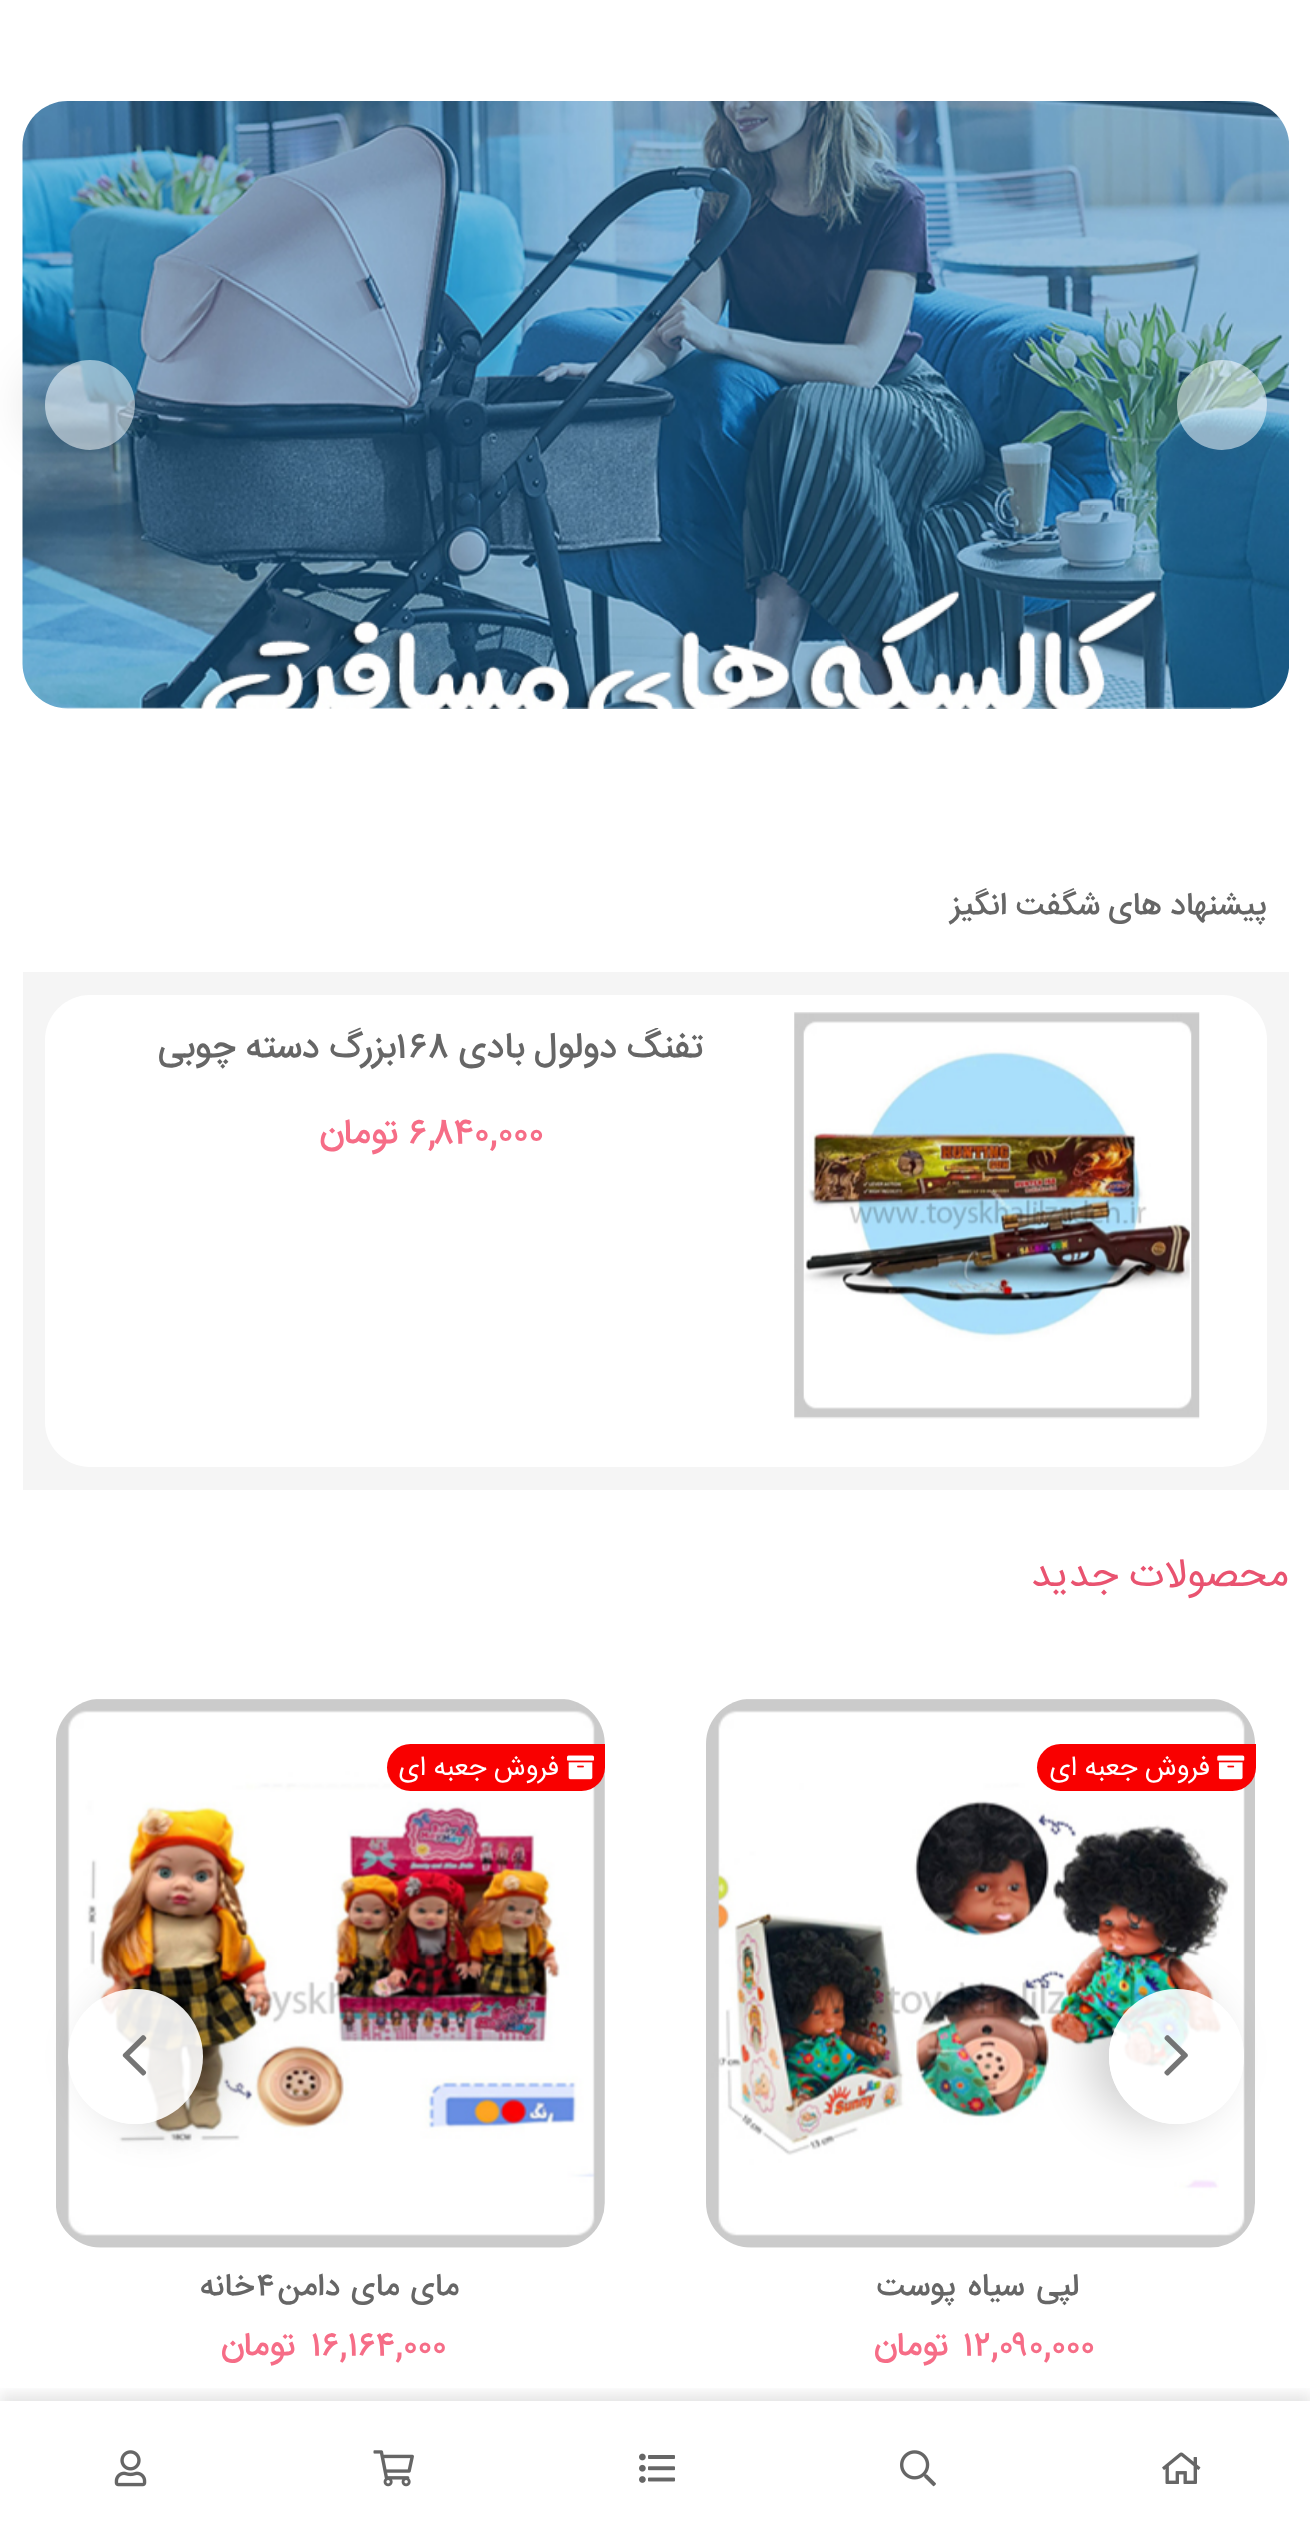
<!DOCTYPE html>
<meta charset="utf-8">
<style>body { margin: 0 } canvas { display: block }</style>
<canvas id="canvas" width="1310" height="2534"></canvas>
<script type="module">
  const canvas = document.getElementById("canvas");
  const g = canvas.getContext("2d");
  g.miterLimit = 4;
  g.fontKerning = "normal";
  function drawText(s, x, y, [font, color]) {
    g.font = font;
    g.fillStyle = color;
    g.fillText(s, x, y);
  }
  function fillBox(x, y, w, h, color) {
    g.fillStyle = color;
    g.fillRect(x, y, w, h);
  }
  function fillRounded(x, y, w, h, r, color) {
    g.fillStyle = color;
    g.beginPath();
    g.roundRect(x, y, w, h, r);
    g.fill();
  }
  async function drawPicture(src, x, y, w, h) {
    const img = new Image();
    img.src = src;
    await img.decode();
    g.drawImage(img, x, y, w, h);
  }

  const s1 = ["500 31.5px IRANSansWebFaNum", "#666666"];
  const s2 = ["500 36px IRANSansWebFaNum", "#666666"];
  const s3 = ["500 36px IRANSansWebFaNum", "#F66D87"];
  const s4 = ["40.5px IRANSansWebFaNum", "#E95370"];
  const s5 = ["27px IRANSansWebFaNum", "#FFFFFF"];
  const s6 = ["500 34px IRANSansWebFaNum", "#F66D87"];

  fillBox(0, 0, 1310, 2534, "#FFFFFF");
  await drawPicture("pic1.png", 22, 101, 1267, 608);
  g.save();
  g.beginPath();
  g.moveTo(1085, 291);
  g.lineTo(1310, 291);
  g.lineTo(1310, 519);
  g.lineTo(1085, 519);
  g.closePath();
  g.moveTo(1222, 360);
  g.bezierCurveTo(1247, 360, 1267, 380, 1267, 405);
  g.bezierCurveTo(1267, 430, 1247, 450, 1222, 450);
  g.bezierCurveTo(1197, 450, 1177, 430, 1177, 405);
  g.bezierCurveTo(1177, 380, 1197, 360, 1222, 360);
  g.closePath();
  g.clip("evenodd");
  g.fillStyle = "rgba(0, 0, 0, 0.1)";
  g.filter = "blur(22.5px)";
  g.beginPath();
  g.roundRect(1154, 360, 90, 90, 45);
  g.fill();
  g.filter = "none";
  g.restore();
  g.fillStyle = "rgba(255, 255, 255, 0.5)";
  g.beginPath();
  g.arc(1222, 405, 45, 0, Math.PI * 2);
  g.fill();
  g.save();
  g.beginPath();
  g.moveTo(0, 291);
  g.lineTo(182, 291);
  g.lineTo(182, 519);
  g.lineTo(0, 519);
  g.closePath();
  g.moveTo(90, 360);
  g.bezierCurveTo(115, 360, 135, 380, 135, 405);
  g.bezierCurveTo(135, 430, 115, 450, 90, 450);
  g.bezierCurveTo(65, 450, 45, 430, 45, 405);
  g.bezierCurveTo(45, 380, 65, 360, 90, 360);
  g.closePath();
  g.clip("evenodd");
  g.fillStyle = "rgba(0, 0, 0, 0.1)";
  g.filter = "blur(22.5px)";
  g.beginPath();
  g.roundRect(23, 360, 90, 90, 45);
  g.fill();
  g.filter = "none";
  g.restore();
  g.beginPath();
  g.arc(90, 405, 45, 0, Math.PI * 2);
  g.fill();
  g.direction = "rtl";
  drawText("پیشنهاد های شگفت انگیز", 1267, 914, s1);
  fillBox(23, 972, 1266, 518, "#F5F5F5");
  fillRounded(45, 995, 1222, 472, 45, "#FFFFFF");
  await drawPicture("pic2.png", 794, 1012, 406, 407);
  g.save();
  g.beginPath();
  g.rect(113, 1028, 636, 43);
  g.clip();
  drawText("تفنگ دولول بادی", 703, 1057, s2);
  g.restore();
  g.direction = "ltr";
  drawText("۱۶۸", 396, 1057, s2);
  g.direction = "rtl";
  drawText("بزرگ دسته چوبی", 396, 1057, s2);
  g.direction = "ltr";
  drawText("۶,۸۴۰,۰۰۰", 409, 1143, s3);
  g.direction = "rtl";
  drawText("تومان", 399, 1143, s3);
  drawText("محصولات جدید", 1289, 1586, s4);
  await drawPicture("pic3.png", 706, 1699, 549, 549);
  g.fillStyle = "#F90000";
  g.beginPath();
  g.roundRect(1037, 1744, 219, 47, [23.5, 0, 23.5, 23.5]);
  g.fill();
  await drawPicture("pic4.png", 1217, 1755, 28, 25);
  drawText("فروش جعبه ای", 1210, 1775, s5);
  g.letterSpacing = "-0.7px";
  g.wordSpacing = "4px";
  drawText("لپی سیاه پوست", 1079, 2295, s1);
  g.letterSpacing = "0px";
  g.wordSpacing = "0px";
  g.direction = "ltr";
  drawText("۱۲,۰۹۰,۰۰۰", 963, 2355, s6);
  g.direction = "rtl";
  drawText("تومان", 949, 2355, s6);
  await drawPicture("pic5.png", 56, 1699, 549, 549);
  g.fillStyle = "#F90000";
  g.beginPath();
  g.roundRect(387, 1744, 218, 47, [23.5, 0, 23.5, 23.5]);
  g.fill();
  await drawPicture("pic6.png", 567, 1755, 27, 25);
  drawText("فروش جعبه ای", 559, 1775, s5);
  g.letterSpacing = "-0.7px";
  g.wordSpacing = "3px";
  drawText("مای مای دامن", 459, 2295, s1);
  g.wordSpacing = "0px";
  g.direction = "ltr";
  drawText("۴", 257, 2295, s1);
  g.direction = "rtl";
  drawText("خانه", 254, 2295, s1);
  g.letterSpacing = "0px";
  g.direction = "ltr";
  drawText("۱۶,۱۶۴,۰۰۰", 311, 2355, s6);
  g.direction = "rtl";
  drawText("تومان", 296, 2355, s6);
  g.save();
  g.beginPath();
  g.moveTo(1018, 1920);
  g.lineTo(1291, 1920);
  g.lineTo(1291, 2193);
  g.lineTo(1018, 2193);
  g.closePath();
  g.moveTo(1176.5, 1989);
  g.bezierCurveTo(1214, 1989, 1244, 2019, 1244, 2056.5);
  g.bezierCurveTo(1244, 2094, 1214, 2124, 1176.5, 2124);
  g.bezierCurveTo(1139, 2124, 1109, 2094, 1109, 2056.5);
  g.bezierCurveTo(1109, 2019, 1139, 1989, 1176.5, 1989);
  g.closePath();
  g.clip("evenodd");
  g.fillStyle = "rgba(0, 0, 0, 0.18)";
  g.filter = "blur(22.5px)";
  g.beginPath();
  g.roundRect(1087, 1989, 135, 135, 67.5);
  g.fill();
  g.filter = "none";
  g.restore();
  g.fillStyle = "rgba(255, 255, 255, 0.9)";
  g.beginPath();
  g.arc(1176.5, 2056.5, 67.5, 0, Math.PI * 2);
  g.fill();
  await drawPicture("pic7.png", 1164, 2035, 24, 41);
  g.save();
  g.beginPath();
  g.moveTo(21, 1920);
  g.lineTo(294, 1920);
  g.lineTo(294, 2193);
  g.lineTo(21, 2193);
  g.closePath();
  g.moveTo(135.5, 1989);
  g.bezierCurveTo(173, 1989, 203, 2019, 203, 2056.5);
  g.bezierCurveTo(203, 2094, 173, 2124, 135.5, 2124);
  g.bezierCurveTo(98, 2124, 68, 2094, 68, 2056.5);
  g.bezierCurveTo(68, 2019, 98, 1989, 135.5, 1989);
  g.closePath();
  g.clip("evenodd");
  g.fillStyle = "rgba(0, 0, 0, 0.18)";
  g.filter = "blur(22.5px)";
  g.beginPath();
  g.roundRect(90, 1989, 135, 135, 67.5);
  g.fill();
  g.filter = "none";
  g.restore();
  g.beginPath();
  g.arc(135.5, 2056.5, 67.5, 0, Math.PI * 2);
  g.fill();
  await drawPicture("pic8.png", 122, 2035, 25, 41);
  g.save();
  g.beginPath();
  g.rect(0, 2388, 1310, 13);
  g.clip();
  g.fillStyle = "rgba(0, 0, 0, 0.1)";
  g.filter = "blur(7px)";
  g.beginPath();
  g.rect(0, 2394, 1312, 135);
  g.fill();
  g.filter = "none";
  g.restore();
  await drawPicture("pic9.png", 1162, 2452, 39, 32);
  await drawPicture("pic10.png", 900, 2450, 36, 37);
  await drawPicture("pic11.png", 639, 2453, 36, 30);
  await drawPicture("pic12.png", 373, 2450, 41, 37);
  await drawPicture("pic13.png", 114, 2450, 33, 37);
</script>
